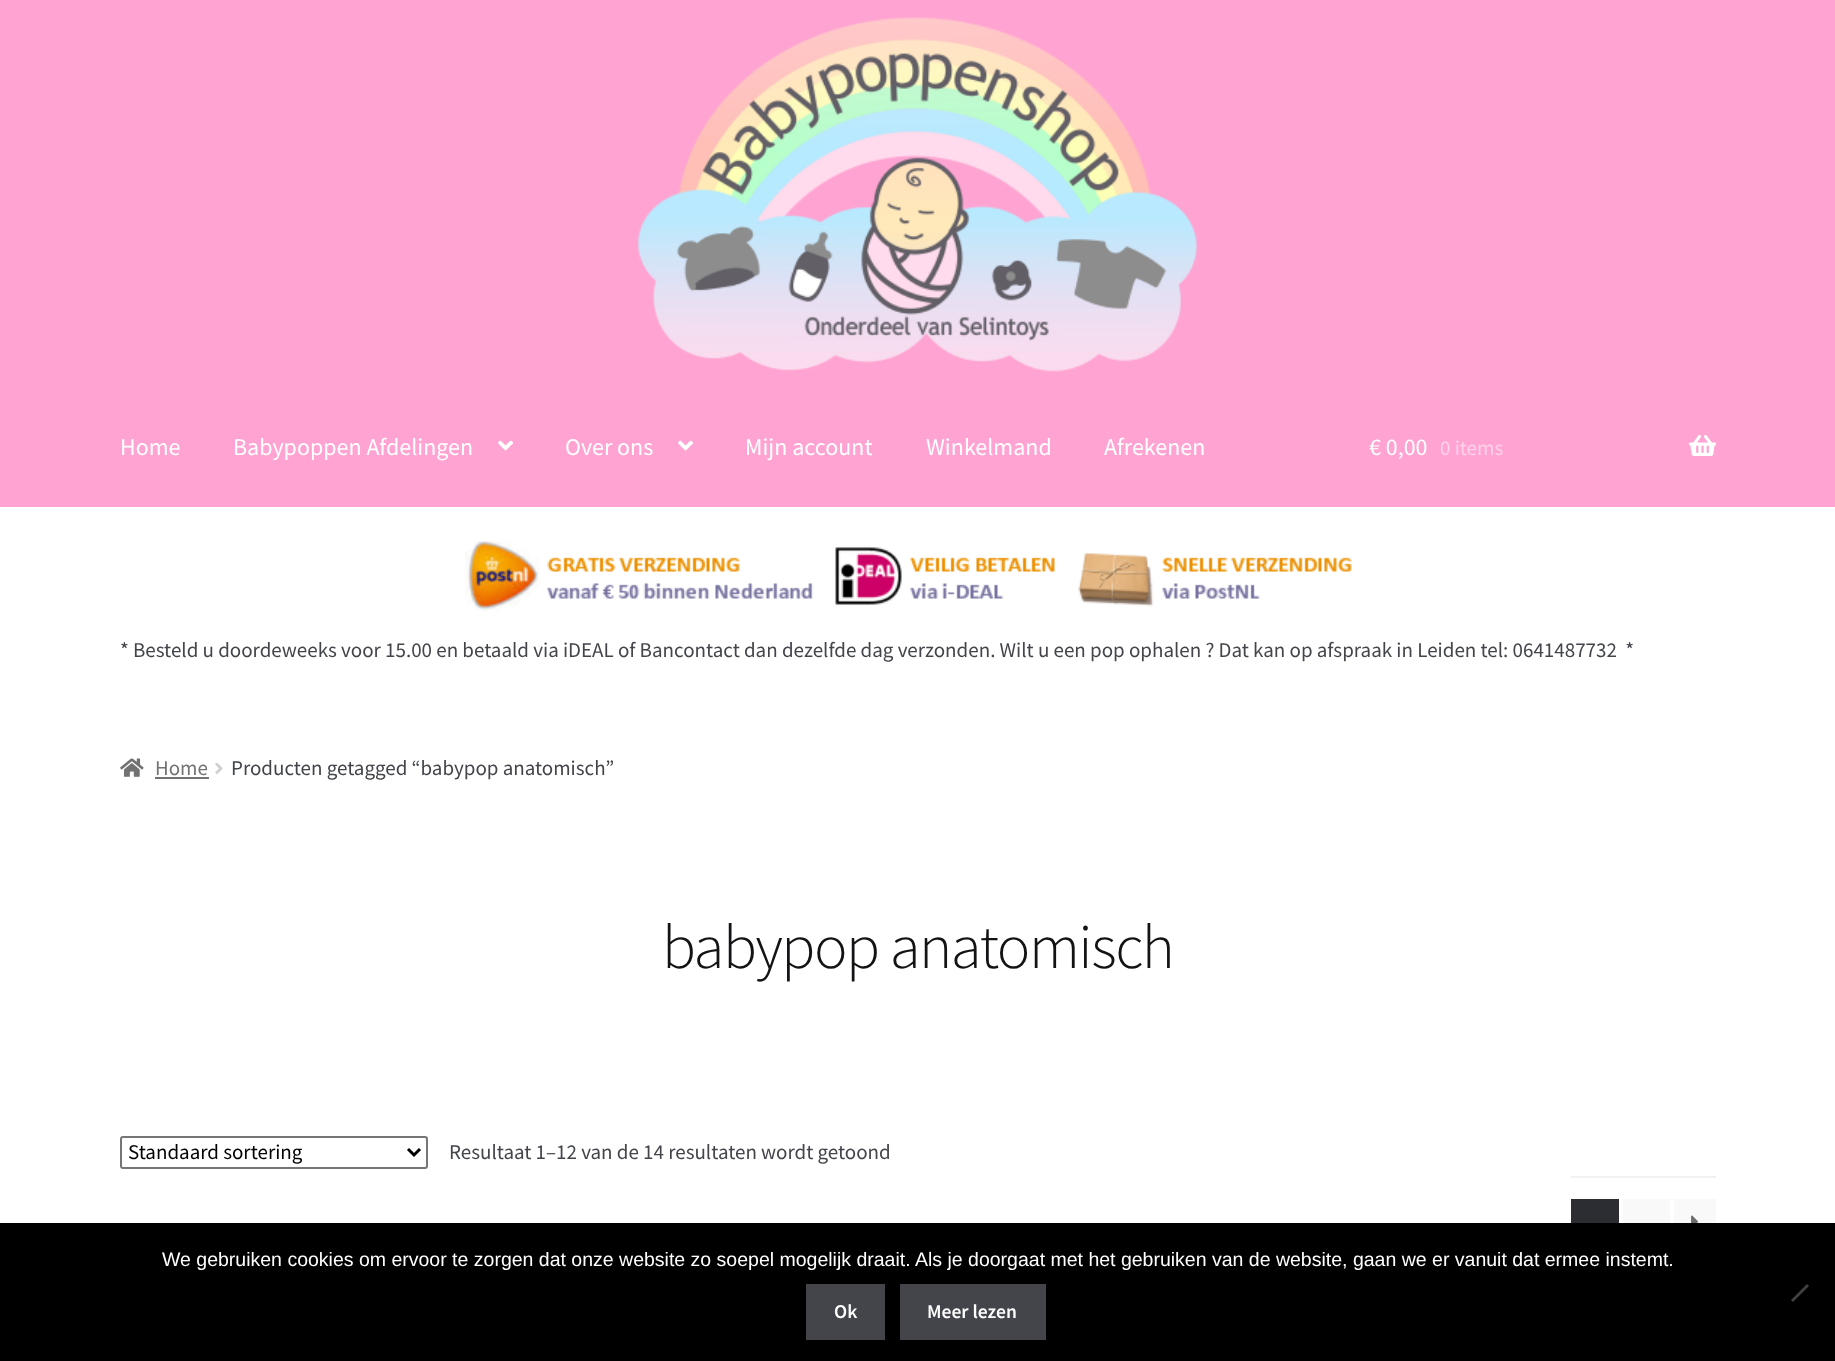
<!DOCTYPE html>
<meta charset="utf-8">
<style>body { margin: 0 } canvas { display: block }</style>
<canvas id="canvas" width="1835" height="1361"></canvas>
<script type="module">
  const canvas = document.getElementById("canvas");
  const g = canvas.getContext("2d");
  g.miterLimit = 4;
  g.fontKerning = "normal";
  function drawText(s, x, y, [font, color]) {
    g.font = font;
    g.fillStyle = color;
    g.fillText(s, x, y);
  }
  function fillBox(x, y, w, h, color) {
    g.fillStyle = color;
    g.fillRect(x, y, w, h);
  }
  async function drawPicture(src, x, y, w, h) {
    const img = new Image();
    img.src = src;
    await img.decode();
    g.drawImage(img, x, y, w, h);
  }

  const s1 = ["24px Source Sans Pro", "#FFFFFF"];
  const s2 = ["21px Source Sans Pro", "#FFD2E9"];
  const s3 = ["21px Source Sans Pro", "#43454B"];
  const s4 = ["21px Source Sans Pro", "#727272"];
  const s5 = ["300 62.75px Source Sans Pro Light", "#131315"];
  const s6 = ["21px Source Sans Pro", "#000000"];
  const s7 = ["19.5px Liberation Sans", "#FFFFFF"];
  const s8 = ["600 19.5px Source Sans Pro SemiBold", "#FFFFFF"];

  fillBox(0, 0, 1835, 1361, "#FFFFFF");
  fillBox(0, 0, 1835, 507, "#FFA4D2");
  await drawPicture("pic1.png", 637, 17, 560, 355);
  drawText("Home", 120, 455, s1);
  drawText("Babypoppen Afdelingen", 233, 455, s1);
  await drawPicture("pic2.png", 498, 440, 15, 11);
  drawText("Over ons", 565, 455, s1);
  await drawPicture("pic2.png", 678, 440, 15, 11);
  drawText("Mijn account", 745, 455, s1);
  drawText("Winkelmand", 926, 455, s1);
  drawText("Afrekenen", 1104, 455, s1);
  drawText("€ 0,00", 1369, 455, s1);
  drawText("0 items", 1440, 455, s2);
  await drawPicture("pic3.png", 1689, 435, 27, 21);
  await drawPicture("pic4.png", 465, 541, 887, 70);
  drawText("* Besteld u doordeweeks voor 15.00 en betaald via iDEAL of Bancontact dan dezelfde dag verzonden. Wilt u een pop ophalen ? Dat kan op afspraak in Leiden tel: 0641487732  *", 120, 657, s3);
  await drawPicture("pic5.png", 120, 758, 24, 19);
  drawText("Home", 155, 775, s4);
  fillBox(155, 777, 54, 2, "#727272");
  await drawPicture("pic6.png", 215, 762, 8, 12);
  drawText("Producten getagged “babypop anatomisch”", 231, 775, s3);
  g.letterSpacing = "-1.5px";
  drawText("babypop anatomisch", 662, 968, s5);
  g.beginPath();
  g.roundRect(121, 1137, 306, 31, 2);
  g.strokeStyle = "#767676";
  g.lineWidth = 2;
  g.stroke();
  g.beginPath();
  g.moveTo(408, 1149);
  g.lineTo(414, 1155);
  g.lineTo(420, 1149);
  g.strokeStyle = "#000000";
  g.lineWidth = 3;
  g.stroke();
  g.letterSpacing = "0px";
  drawText("Standaard sortering", 128, 1159, s6);
  drawText("Resultaat 1–12 van de 14 resultaten wordt getoond", 449, 1159, s3);
  fillBox(1571, 1176, 145, 2, "#F2F2F2");
  fillBox(1571, 1199, 48, 24, "#2C2D33");
  fillBox(1623, 1199, 47, 24, "#F9F9F9");
  fillBox(1674, 1199, 42, 24, "#F9F9F9");
  await drawPicture("pic7.png", 1691, 1215, 7, 8);
  fillBox(0, 1223, 1835, 138, "#000000");
  drawText("We gebruiken cookies om ervoor te zorgen dat onze website zo soepel mogelijk draait. Als je doorgaat met het gebruiken van de website, gaan we er vanuit dat ermee instemt.", 162, 1266, s7);
  g.fillStyle = "#404040";
  g.beginPath();
  g.moveTo(1807, 1284);
  g.lineTo(1809, 1286);
  g.lineTo(1793, 1302);
  g.lineTo(1791, 1300);
  g.closePath();
  g.fill();
  fillBox(806, 1284, 79, 56, "#43454B");
  drawText("Ok", 834, 1318, s8);
  fillBox(900, 1284, 146, 56, "#43454B");
  drawText("Meer lezen", 927, 1318, s8);
</script>
